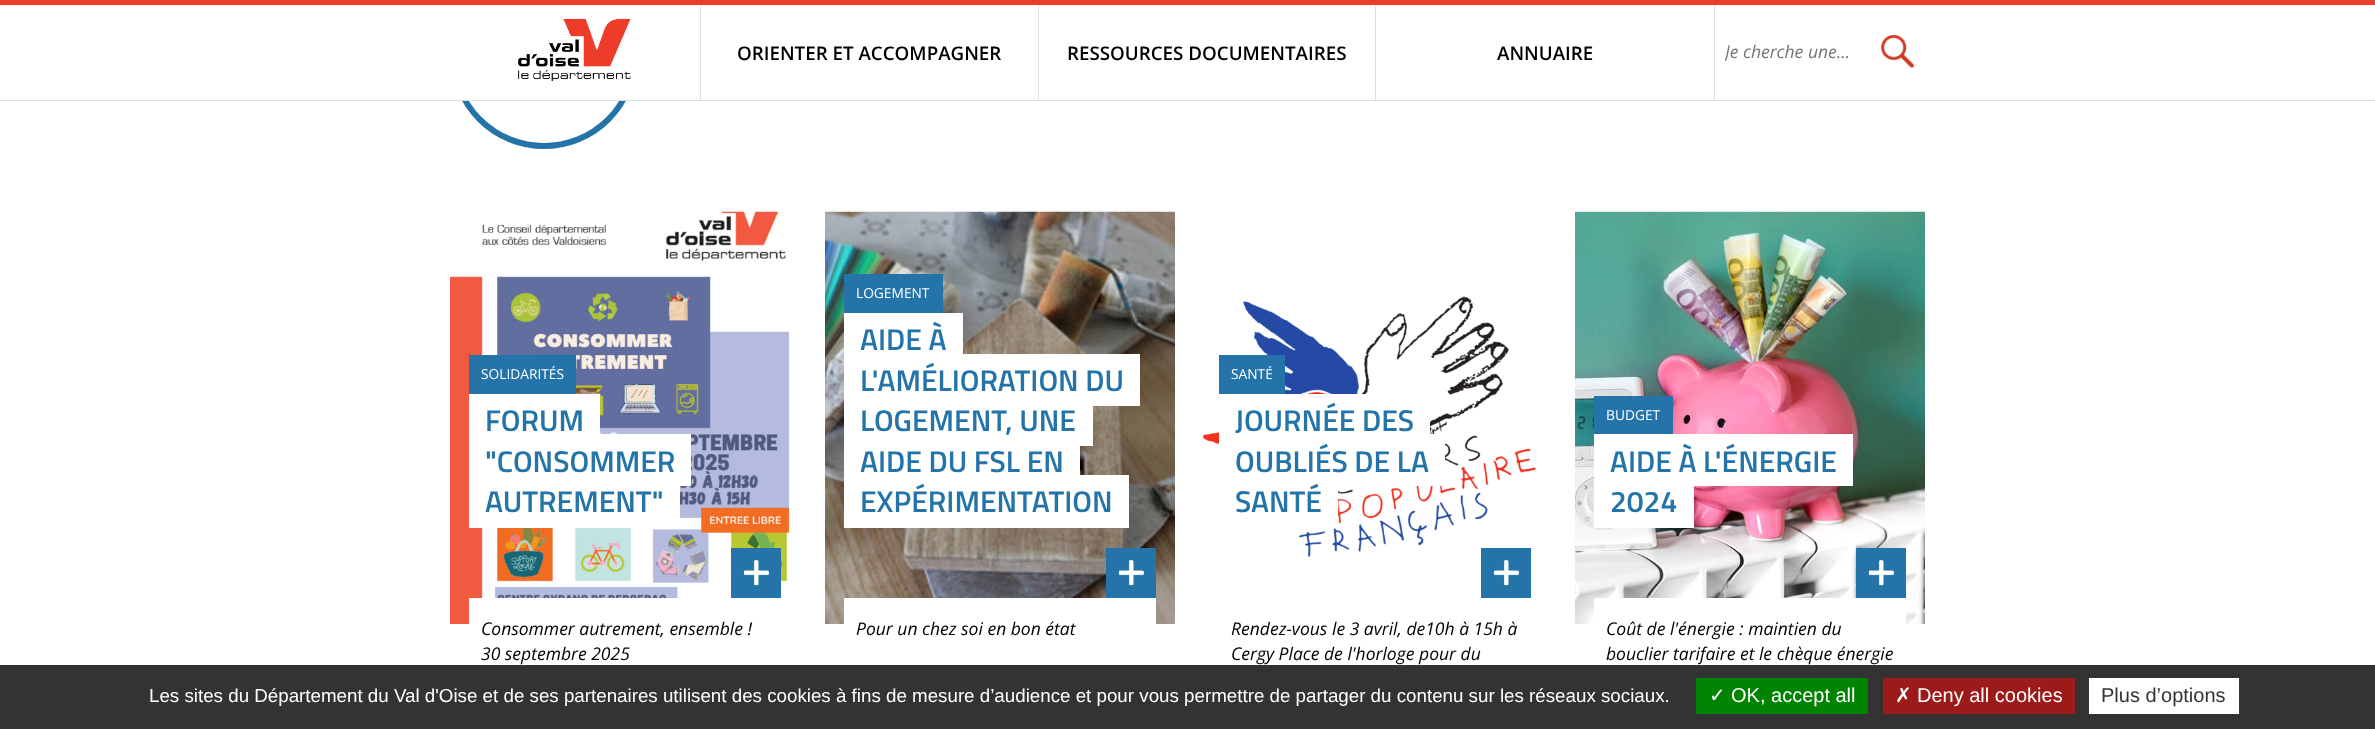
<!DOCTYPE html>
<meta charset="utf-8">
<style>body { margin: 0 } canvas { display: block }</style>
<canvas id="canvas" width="2375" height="729"></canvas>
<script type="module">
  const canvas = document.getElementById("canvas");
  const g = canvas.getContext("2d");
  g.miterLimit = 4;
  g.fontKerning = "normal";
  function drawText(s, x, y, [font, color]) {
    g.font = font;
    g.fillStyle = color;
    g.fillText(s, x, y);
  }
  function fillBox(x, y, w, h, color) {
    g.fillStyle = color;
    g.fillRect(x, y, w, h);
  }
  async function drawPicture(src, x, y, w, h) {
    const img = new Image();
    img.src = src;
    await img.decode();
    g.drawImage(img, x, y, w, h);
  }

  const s1 = ["600 18.75px Open Sans", "#000000"];
  const s2 = ["italic 17.5px Open Sans", "#757575"];
  const s3 = ["13.75px Open Sans", "#FFFFFF"];
  const s4 = ["600 30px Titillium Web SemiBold", "#2474A9"];
  const s5 = ["italic 17.5px Open Sans", "#000000"];
  const s6 = ["18.75px Liberation Sans", "#FFFFFF"];
  const s7 = ["20px DejaVu Sans", "#FFFFFF"];
  const s8 = ["20px Liberation Sans", "#FFFFFF"];
  const s9 = ["20px Liberation Sans", "#333333"];

  fillBox(0, 0, 2375, 729, "#FFFFFF");
  g.beginPath();
  g.arc(544, 55, 91, 0, Math.PI * 2);
  g.strokeStyle = "#2474A9";
  g.lineWidth = 6;
  g.stroke();
  fillBox(450, 5, 188, 95, "#FFFFFF");
  fillBox(0, 0, 2375, 5, "#EE3C2B");
  fillBox(0, 100, 2375, 1, "#DEDEDE");
  fillBox(700, 5, 1, 95, "#DEDEDE");
  await drawPicture("pic1.png", 518, 18, 113, 63);
  fillBox(1038, 5, 1, 95, "#DEDEDE");
  drawText("ORIENTER ET ACCOMPAGNER", 737, 60, s1);
  fillBox(1375, 5, 1, 95, "#DEDEDE");
  drawText("RESSOURCES DOCUMENTAIRES", 1067, 60, s1);
  fillBox(1714, 5, 1, 95, "#DEDEDE");
  drawText("ANNUAIRE", 1497, 60, s1);
  g.save();
  g.beginPath();
  g.rect(1725, 39, 128, 24);
  g.clip();
  drawText("Je cherche une…", 1725, 58, s2);
  g.restore();
  await drawPicture("pic2.png", 1881, 35, 34, 33);
  await drawPicture("pic3.png", 450, 211, 340, 413);
  fillBox(469, 355, 107, 39, "#2474A9");
  drawText("SOLIDARITÉS", 481, 379, s3);
  g.beginPath();
  g.moveTo(494, 394);
  g.lineTo(494, 398);
  g.lineTo(584, 398);
  g.lineTo(584, 442);
  g.lineTo(494, 442);
  g.lineTo(494, 446);
  g.lineTo(600, 446);
  g.lineTo(600, 394);
  g.closePath();
  g.fill();
  g.beginPath();
  g.moveTo(469, 394);
  g.lineTo(469, 446);
  g.lineTo(575, 446);
  g.lineTo(575, 442);
  g.lineTo(485, 442);
  g.lineTo(485, 398);
  g.lineTo(575, 398);
  g.lineTo(575, 394);
  g.closePath();
  g.fill();
  fillBox(497, 398, 87, 36, "#FFFFFF");
  drawText("FORUM", 485, 431, s4);
  g.fillStyle = "#FFFFFF";
  g.beginPath();
  g.moveTo(494, 434);
  g.lineTo(494, 438);
  g.lineTo(675, 438);
  g.lineTo(675, 482);
  g.lineTo(494, 482);
  g.lineTo(494, 486);
  g.lineTo(691, 486);
  g.lineTo(691, 434);
  g.closePath();
  g.fill();
  g.beginPath();
  g.moveTo(469, 434);
  g.lineTo(469, 486);
  g.lineTo(666, 486);
  g.lineTo(666, 482);
  g.lineTo(485, 482);
  g.lineTo(485, 438);
  g.lineTo(666, 438);
  g.lineTo(666, 434);
  g.closePath();
  g.fill();
  fillBox(497, 438, 178, 37, "#FFFFFF");
  drawText("\"CONSOMMER", 485, 472, s4);
  g.fillStyle = "#FFFFFF";
  g.beginPath();
  g.moveTo(494, 475);
  g.lineTo(494, 479);
  g.lineTo(664, 479);
  g.lineTo(664, 524);
  g.lineTo(494, 524);
  g.lineTo(494, 528);
  g.lineTo(680, 528);
  g.lineTo(680, 475);
  g.closePath();
  g.fill();
  g.beginPath();
  g.moveTo(469, 475);
  g.lineTo(469, 528);
  g.lineTo(655, 528);
  g.lineTo(655, 524);
  g.lineTo(485, 524);
  g.lineTo(485, 479);
  g.lineTo(655, 479);
  g.lineTo(655, 475);
  g.closePath();
  g.fill();
  fillBox(497, 479, 167, 40, "#FFFFFF");
  drawText("AUTREMENT\"", 485, 512, s4);
  fillBox(469, 598, 291, 26, "#FFFFFF");
  fillBox(731, 548, 50, 50, "#2474A9");
  await drawPicture("pic4.png", 743, 560, 26, 26);
  drawText("Consommer autrement, ensemble !", 481, 635, s5);
  drawText("30 septembre 2025", 481, 660, s5);
  await drawPicture("pic5.png", 825, 211, 350, 413);
  fillBox(844, 274, 99, 39, "#2474A9");
  drawText("LOGEMENT", 856, 298, s3);
  g.beginPath();
  g.moveTo(869, 313);
  g.lineTo(869, 316);
  g.lineTo(946, 316);
  g.lineTo(946, 361);
  g.lineTo(869, 361);
  g.lineTo(869, 365);
  g.lineTo(963, 365);
  g.lineTo(963, 313);
  g.closePath();
  g.fill();
  g.beginPath();
  g.moveTo(844, 313);
  g.lineTo(844, 365);
  g.lineTo(938, 365);
  g.lineTo(938, 361);
  g.lineTo(860, 361);
  g.lineTo(860, 316);
  g.lineTo(938, 316);
  g.lineTo(938, 313);
  g.closePath();
  g.fill();
  g.strokeStyle = "#FFFFFF";
  g.lineWidth = 4;
  g.strokeRect(858, 315, 90, 48);
  fillBox(860, 317, 86, 37, "#FFFFFF");
  drawText("AIDE À", 860, 350, s4);
  g.fillStyle = "#FFFFFF";
  g.beginPath();
  g.moveTo(869, 354);
  g.lineTo(869, 358);
  g.lineTo(1124, 358);
  g.lineTo(1124, 402);
  g.lineTo(869, 402);
  g.lineTo(869, 406);
  g.lineTo(1140, 406);
  g.lineTo(1140, 354);
  g.closePath();
  g.fill();
  g.beginPath();
  g.moveTo(844, 354);
  g.lineTo(844, 406);
  g.lineTo(1115, 406);
  g.lineTo(1115, 402);
  g.lineTo(860, 402);
  g.lineTo(860, 358);
  g.lineTo(1115, 358);
  g.lineTo(1115, 354);
  g.closePath();
  g.fill();
  fillBox(860, 358, 264, 44, "#FFFFFF");
  drawText("L'AMÉLIORATION DU", 860, 391, s4);
  g.fillStyle = "#FFFFFF";
  g.beginPath();
  g.moveTo(869, 394);
  g.lineTo(869, 398);
  g.lineTo(1076, 398);
  g.lineTo(1076, 442);
  g.lineTo(869, 442);
  g.lineTo(869, 446);
  g.lineTo(1093, 446);
  g.lineTo(1093, 394);
  g.closePath();
  g.fill();
  g.beginPath();
  g.moveTo(844, 394);
  g.lineTo(844, 446);
  g.lineTo(1068, 446);
  g.lineTo(1068, 442);
  g.lineTo(860, 442);
  g.lineTo(860, 398);
  g.lineTo(1068, 398);
  g.lineTo(1068, 394);
  g.closePath();
  g.fill();
  fillBox(860, 406, 216, 28, "#FFFFFF");
  g.beginPath();
  g.moveTo(869, 434);
  g.lineTo(869, 438);
  g.lineTo(1064, 438);
  g.lineTo(1064, 482);
  g.lineTo(869, 482);
  g.lineTo(869, 486);
  g.lineTo(1080, 486);
  g.lineTo(1080, 434);
  g.closePath();
  g.fill();
  g.beginPath();
  g.moveTo(844, 434);
  g.lineTo(844, 486);
  g.lineTo(1055, 486);
  g.lineTo(1055, 482);
  g.lineTo(860, 482);
  g.lineTo(860, 438);
  g.lineTo(1055, 438);
  g.lineTo(1055, 434);
  g.closePath();
  g.fill();
  drawText("LOGEMENT, UNE", 860, 431, s4);
  fillBox(860, 438, 204, 37, "#FFFFFF");
  drawText("AIDE DU FSL EN", 860, 472, s4);
  g.fillStyle = "#FFFFFF";
  g.beginPath();
  g.moveTo(869, 475);
  g.lineTo(869, 479);
  g.lineTo(1112, 479);
  g.lineTo(1112, 524);
  g.lineTo(869, 524);
  g.lineTo(869, 528);
  g.lineTo(1129, 528);
  g.lineTo(1129, 475);
  g.closePath();
  g.fill();
  g.beginPath();
  g.moveTo(844, 475);
  g.lineTo(844, 528);
  g.lineTo(1104, 528);
  g.lineTo(1104, 524);
  g.lineTo(860, 524);
  g.lineTo(860, 479);
  g.lineTo(1104, 479);
  g.lineTo(1104, 475);
  g.closePath();
  g.fill();
  fillBox(860, 479, 252, 45, "#FFFFFF");
  drawText("EXPÉRIMENTATION", 860, 512, s4);
  fillBox(844, 598, 312, 26, "#FFFFFF");
  fillBox(1106, 548, 50, 50, "#2474A9");
  await drawPicture("pic4.png", 1118, 560, 26, 26);
  drawText("Pour un chez soi en bon état", 856, 635, s5);
  await drawPicture("pic6.png", 1202, 296, 334, 261);
  fillBox(1219, 355, 66, 39, "#2474A9");
  drawText("SANTÉ", 1231, 379, s3);
  g.beginPath();
  g.moveTo(1244, 394);
  g.lineTo(1244, 398);
  g.lineTo(1414, 398);
  g.lineTo(1414, 442);
  g.lineTo(1244, 442);
  g.lineTo(1244, 446);
  g.lineTo(1430, 446);
  g.lineTo(1430, 394);
  g.closePath();
  g.fill();
  g.beginPath();
  g.moveTo(1219, 394);
  g.lineTo(1219, 446);
  g.lineTo(1405, 446);
  g.lineTo(1405, 442);
  g.lineTo(1235, 442);
  g.lineTo(1235, 398);
  g.lineTo(1405, 398);
  g.lineTo(1405, 394);
  g.closePath();
  g.fill();
  fillBox(1235, 398, 179, 40, "#FFFFFF");
  drawText("JOURNÉE DES", 1235, 431, s4);
  g.fillStyle = "#FFFFFF";
  g.beginPath();
  g.moveTo(1244, 434);
  g.lineTo(1244, 438);
  g.lineTo(1429, 438);
  g.lineTo(1429, 482);
  g.lineTo(1244, 482);
  g.lineTo(1244, 486);
  g.lineTo(1445, 486);
  g.lineTo(1445, 434);
  g.closePath();
  g.fill();
  fillBox(1235, 438, 189, 44, "#FFFFFF");
  drawText("OUBLIÉS DE LA", 1235, 472, s4);
  g.fillStyle = "#FFFFFF";
  g.beginPath();
  g.moveTo(1244, 475);
  g.lineTo(1244, 479);
  g.lineTo(1321, 479);
  g.lineTo(1321, 524);
  g.lineTo(1244, 524);
  g.lineTo(1244, 528);
  g.lineTo(1338, 528);
  g.lineTo(1338, 475);
  g.closePath();
  g.fill();
  fillBox(1270, 486, 51, 26, "#FFFFFF");
  drawText("SANTÉ", 1235, 512, s4);
  fillBox(1481, 548, 50, 50, "#2474A9");
  await drawPicture("pic4.png", 1493, 560, 26, 26);
  drawText("Rendez-vous le 3 avril, de10h à 15h à", 1231, 635, s5);
  drawText("Cergy Place de l'horloge pour du", 1231, 660, s5);
  await drawPicture("pic7.png", 1575, 211, 350, 413);
  fillBox(1594, 396, 79, 38, "#2474A9");
  drawText("BUDGET", 1606, 420, s3);
  g.beginPath();
  g.moveTo(1619, 434);
  g.lineTo(1619, 438);
  g.lineTo(1836, 438);
  g.lineTo(1836, 482);
  g.lineTo(1619, 482);
  g.lineTo(1619, 486);
  g.lineTo(1853, 486);
  g.lineTo(1853, 434);
  g.closePath();
  g.fill();
  g.beginPath();
  g.moveTo(1594, 434);
  g.lineTo(1594, 486);
  g.lineTo(1828, 486);
  g.lineTo(1828, 482);
  g.lineTo(1610, 482);
  g.lineTo(1610, 438);
  g.lineTo(1828, 438);
  g.lineTo(1828, 434);
  g.closePath();
  g.fill();
  fillBox(1610, 438, 226, 44, "#FFFFFF");
  drawText("AIDE À L'ÉNERGIE", 1610, 472, s4);
  g.fillStyle = "#FFFFFF";
  g.beginPath();
  g.moveTo(1619, 475);
  g.lineTo(1619, 479);
  g.lineTo(1678, 479);
  g.lineTo(1678, 524);
  g.lineTo(1619, 524);
  g.lineTo(1619, 528);
  g.lineTo(1694, 528);
  g.lineTo(1694, 475);
  g.closePath();
  g.fill();
  g.beginPath();
  g.moveTo(1594, 475);
  g.lineTo(1594, 528);
  g.lineTo(1669, 528);
  g.lineTo(1669, 524);
  g.lineTo(1610, 524);
  g.lineTo(1610, 479);
  g.lineTo(1669, 479);
  g.lineTo(1669, 475);
  g.closePath();
  g.fill();
  g.strokeRect(1608, 477, 71, 49);
  fillBox(1610, 486, 67, 38, "#FFFFFF");
  drawText("2024", 1610, 512, s4);
  fillBox(1594, 598, 312, 26, "#FFFFFF");
  fillBox(1856, 548, 50, 50, "#2474A9");
  await drawPicture("pic4.png", 1868, 560, 26, 26);
  drawText("Coût de l'énergie : maintien du", 1606, 635, s5);
  drawText("bouclier tarifaire et le chèque énergie", 1606, 660, s5);
  fillBox(0, 665, 2375, 64, "#333333");
  drawText("Les sites du Département du Val d'Oise et de ses partenaires utilisent des cookies à fins de mesure d’audience et pour vous permettre de partager du contenu sur les réseaux sociaux.", 149, 702, s6);
  fillBox(1696, 678, 172, 36, "#008300");
  drawText("✓", 1709, 702, s7);
  drawText("OK, accept all", 1731, 702, s8);
  fillBox(1883, 678, 192, 36, "#9C1A1A");
  drawText("✗", 1895, 702, s7);
  drawText("Deny all cookies", 1917, 702, s8);
  fillBox(2089, 678, 150, 36, "#FFFFFF");
  drawText("Plus d’options", 2101, 702, s9);
</script>
